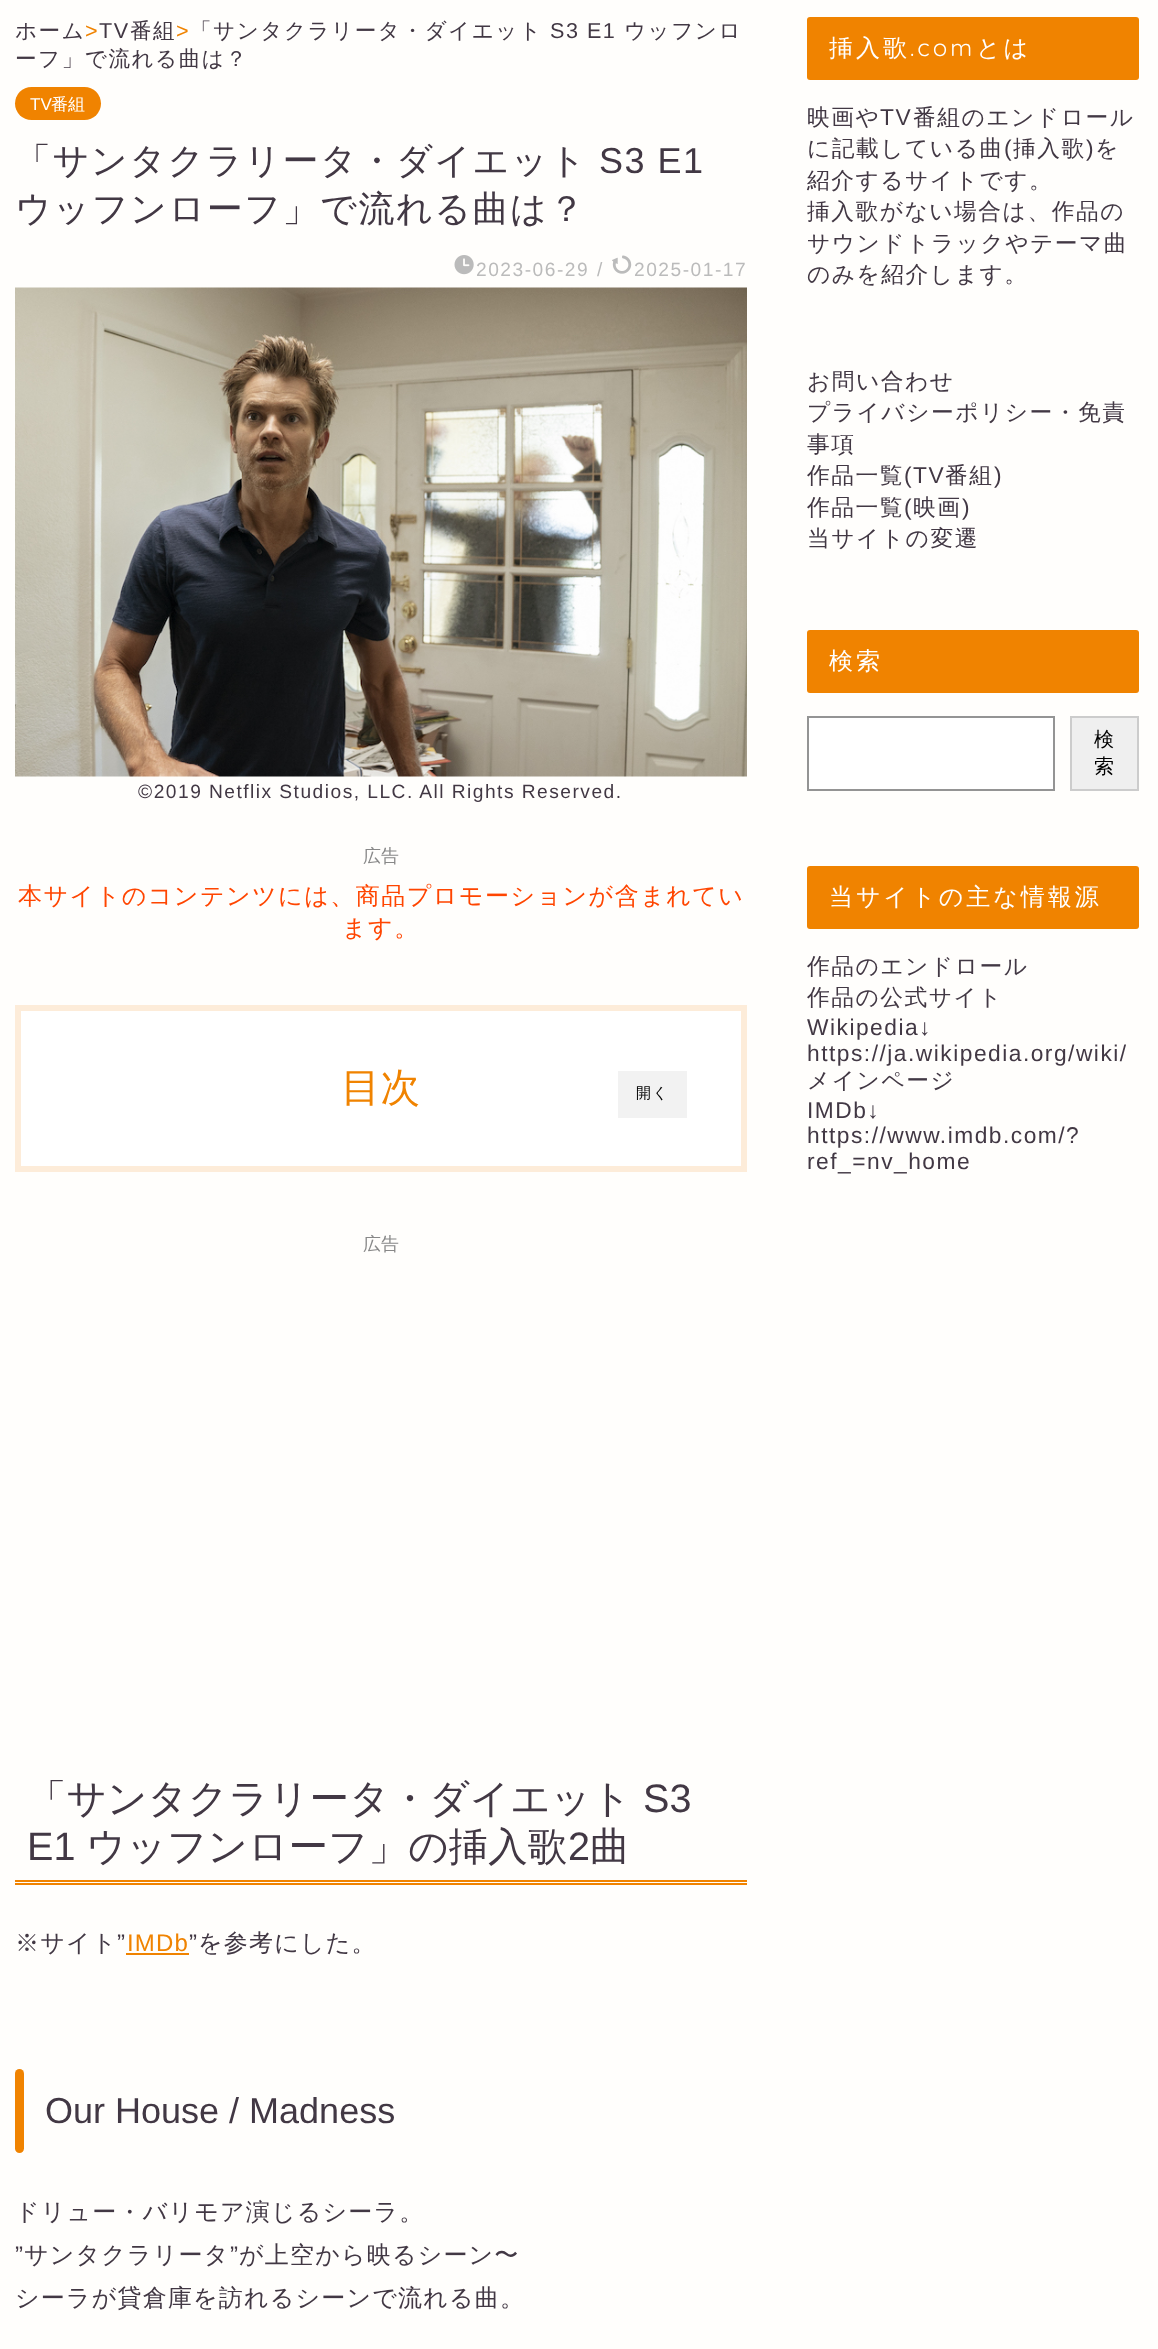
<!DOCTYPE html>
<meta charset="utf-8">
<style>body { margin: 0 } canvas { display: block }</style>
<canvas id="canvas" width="1158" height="2349"></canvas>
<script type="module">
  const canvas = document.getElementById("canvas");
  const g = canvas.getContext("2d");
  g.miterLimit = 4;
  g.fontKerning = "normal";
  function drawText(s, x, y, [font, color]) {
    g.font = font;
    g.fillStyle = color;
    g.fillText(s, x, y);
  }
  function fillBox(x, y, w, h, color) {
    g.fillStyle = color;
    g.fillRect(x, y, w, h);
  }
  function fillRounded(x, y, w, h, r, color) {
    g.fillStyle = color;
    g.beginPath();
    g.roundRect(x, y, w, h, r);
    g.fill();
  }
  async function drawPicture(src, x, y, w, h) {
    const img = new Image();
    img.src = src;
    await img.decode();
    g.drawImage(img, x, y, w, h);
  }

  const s1 = ["500 21.6px WenQuanYi Zen Hei", "#423844"];
  const s2 = ["21.6px Liberation Sans", "#F08300"];
  const s3 = ["21.6px Liberation Sans", "#423844"];
  const s4 = ["17px Liberation Sans", "#FFFFFF"];
  const s5 = ["500 17px WenQuanYi Zen Hei", "#FFFFFF"];
  const s6 = ["500 36px WenQuanYi Zen Hei", "#423844"];
  const s7 = ["36px Liberation Sans", "#423844"];
  const s8 = ["19.2px Liberation Sans", "#BBBBBB"];
  const s9 = ["19.2px Liberation Sans", "#423844"];
  const s10 = ["500 18px WenQuanYi Zen Hei", "#888888"];
  const s11 = ["500 24px WenQuanYi Zen Hei", "#FF4500"];
  const s12 = ["500 39.6px WenQuanYi Zen Hei", "#F08300"];
  const s13 = ["500 15px WenQuanYi Zen Hei", "#000000"];
  const s14 = ["500 39.6px WenQuanYi Zen Hei", "#423844"];
  const s15 = ["39.6px Liberation Sans", "#423844"];
  const s16 = ["500 24px WenQuanYi Zen Hei", "#423844"];
  const s17 = ["24px Liberation Sans", "#423844"];
  const s18 = ["24px Liberation Sans", "#F08300"];
  const s19 = ["500 24px WenQuanYi Zen Hei", "#FFFFFF"];
  const s20 = ["300 24px Quicksand", "#FFFFFF"];
  const s21 = ["500 22.75px WenQuanYi Zen Hei", "#423844"];
  const s22 = ["22.75px Liberation Sans", "#423844"];
  const s23 = ["500 20px WenQuanYi Zen Hei", "#000000"];

  fillBox(0, 0, 1158, 2349, "#FFFEFC");
  g.letterSpacing = "1.5px";
  drawText("ホーム", 15, 38, s1);
  drawText(">", 85, 38, s2);
  drawText("TV", 99, 38, s3);
  drawText("番組", 130, 38, s1);
  drawText(">", 176, 38, s2);
  drawText("「サンタクラリータ・ダイエット", 190, 38, s1);
  drawText("S3 E1", 550, 38, s3);
  drawText("ウッフンロ", 624, 38, s1);
  drawText("ーフ」で流れる曲は？", 15, 66, s1);
  fillRounded(15, 87, 86, 33, 16.5, "#F08300");
  g.letterSpacing = "0px";
  drawText("TV", 30, 110, s4);
  drawText("番組", 51, 110, s5);
  g.letterSpacing = "1.5px";
  drawText("「サンタクラリータ・ダイエット", 15, 173, s6);
  drawText("S3 E1", 599, 173, s7);
  drawText("ウッフンローフ」で流れる曲は？", 15, 221, s6);
  await drawPicture("pic1.png", 454, 255, 20, 20);
  drawText("2023-06-29", 476, 276, s8);
  drawText("/", 597, 276, s8);
  await drawPicture("pic2.png", 612, 255, 20, 19);
  drawText("2025-01-17", 634, 276, s8);
  await drawPicture("pic3.png", 15, 287, 732, 490);
  g.wordSpacing = "-0.25px";
  drawText("©︎2019 Netflix Studios, LLC. All Rights Reserved.", 138, 798, s9);
  g.letterSpacing = "0px";
  g.wordSpacing = "0px";
  drawText("広告", 363, 862, s10);
  g.letterSpacing = "1.5px";
  drawText("本サイトのコンテンツには、商品プロモーションが含まれてい", 18, 904, s11);
  drawText("ます。", 342, 936, s11);
  g.fillStyle = "#FFFFFF";
  g.beginPath();
  g.rect(18, 1008, 726, 161);
  g.fill();
  g.strokeStyle = "#FDECD9";
  g.lineWidth = 6;
  g.stroke();
  g.letterSpacing = "0px";
  drawText("目次", 341, 1101, s12);
  fillBox(618, 1071, 69, 47, "#F2F2F2");
  g.letterSpacing = "1.5px";
  drawText("開く", 636, 1098, s13);
  g.letterSpacing = "0px";
  drawText("広告", 363, 1250, s10);
  fillBox(15, 1880, 732, 2, "#F08300");
  fillBox(15, 1883, 732, 2, "#F08300");
  drawText("「サンタクラリータ・ダイエット", 27, 1812, s14);
  drawText("S3", 643, 1812, s15);
  drawText("E1", 27, 1860, s15);
  drawText("ウッフンローフ」の挿入歌", 86, 1860, s14);
  drawText("2", 568, 1860, s15);
  drawText("曲", 590, 1860, s14);
  g.letterSpacing = "1.2px";
  drawText("※サイト", 15, 1951, s16);
  drawText("”", 117, 1951, s17);
  drawText("IMDb", 127, 1951, s18);
  fillBox(126, 1953, 63, 2, "#F08300");
  drawText("”", 189, 1951, s17);
  drawText("を参考にした。", 198, 1951, s16);
  fillRounded(15, 2069, 9, 84, 4.5, "#F08300");
  g.letterSpacing = "0px";
  drawText("Our House / Madness", 45, 2123, s7);
  g.letterSpacing = "1.2px";
  drawText("ドリュー・バリモア演じるシーラ。", 15, 2220, s16);
  drawText("”", 15, 2263, s17);
  drawText("サンタクラリータ", 24, 2263, s16);
  drawText("”", 230, 2263, s17);
  drawText("が上空から映るシーン〜", 239, 2263, s16);
  drawText("シーラが貸倉庫を訪れるシーンで流れる曲。", 15, 2306, s16);
  fillRounded(807, 17, 332, 63, 3, "#F08300");
  g.letterSpacing = "3px";
  drawText("挿入歌", 829, 56, s19);
  drawText(".com", 910, 56, s20);
  drawText("とは", 976, 56, s19);
  g.letterSpacing = "1.5px";
  drawText("映画や", 807, 125, s21);
  drawText("TV", 880, 125, s22);
  drawText("番組のエンドロール", 913, 125, s21);
  drawText("に記載している曲", 807, 156, s21);
  drawText("(", 1004, 156, s22);
  drawText("挿入歌", 1013, 156, s21);
  drawText(")", 1086, 156, s22);
  drawText("を", 1095, 156, s21);
  drawText("紹介するサイトです。", 807, 188, s21);
  drawText("挿入歌がない場合は、作品の", 807, 219, s21);
  drawText("サウンドトラックやテーマ曲", 807, 251, s21);
  drawText("のみを紹介します。", 807, 282, s21);
  drawText("お問い合わせ", 807, 389, s21);
  drawText("プライバシーポリシー・免責", 807, 420, s21);
  drawText("事項", 807, 452, s21);
  drawText("作品一覧", 807, 483, s21);
  drawText("(TV", 904, 483, s22);
  drawText("番組", 945, 483, s21);
  drawText(")", 994, 483, s22);
  drawText("作品一覧", 807, 515, s21);
  drawText("(", 904, 515, s22);
  drawText("映画", 913, 515, s21);
  drawText(")", 962, 515, s22);
  drawText("当サイトの変遷", 807, 546, s21);
  fillRounded(807, 630, 332, 63, 3, "#F08300");
  g.letterSpacing = "3px";
  drawText("検索", 829, 669, s19);
  g.beginPath();
  g.rect(808, 717, 246, 73);
  g.fill();
  g.strokeStyle = "#949494";
  g.lineWidth = 2;
  g.stroke();
  g.fillStyle = "#EFEFEF";
  g.beginPath();
  g.rect(1071, 717, 67, 73);
  g.fill();
  g.strokeStyle = "#CCCCCC";
  g.stroke();
  g.letterSpacing = "0px";
  drawText("検", 1094, 746, s23);
  drawText("索", 1094, 773, s23);
  fillRounded(807, 866, 332, 63, 3, "#F08300");
  g.letterSpacing = "3px";
  drawText("当サイトの主な情報源", 829, 905, s19);
  g.letterSpacing = "1.5px";
  drawText("作品のエンドロール", 807, 974, s21);
  drawText("作品の公式サイト", 807, 1005, s21);
  drawText("Wikipedia↓", 807, 1035, s22);
  drawText("https://ja.wikipedia.org/wiki/", 807, 1061, s22);
  drawText("メインページ", 807, 1088, s21);
  drawText("IMDb↓", 807, 1118, s22);
  drawText("https://www.imdb.com/?", 807, 1143, s22);
  drawText("ref_=nv_home", 807, 1169, s22);
</script>
